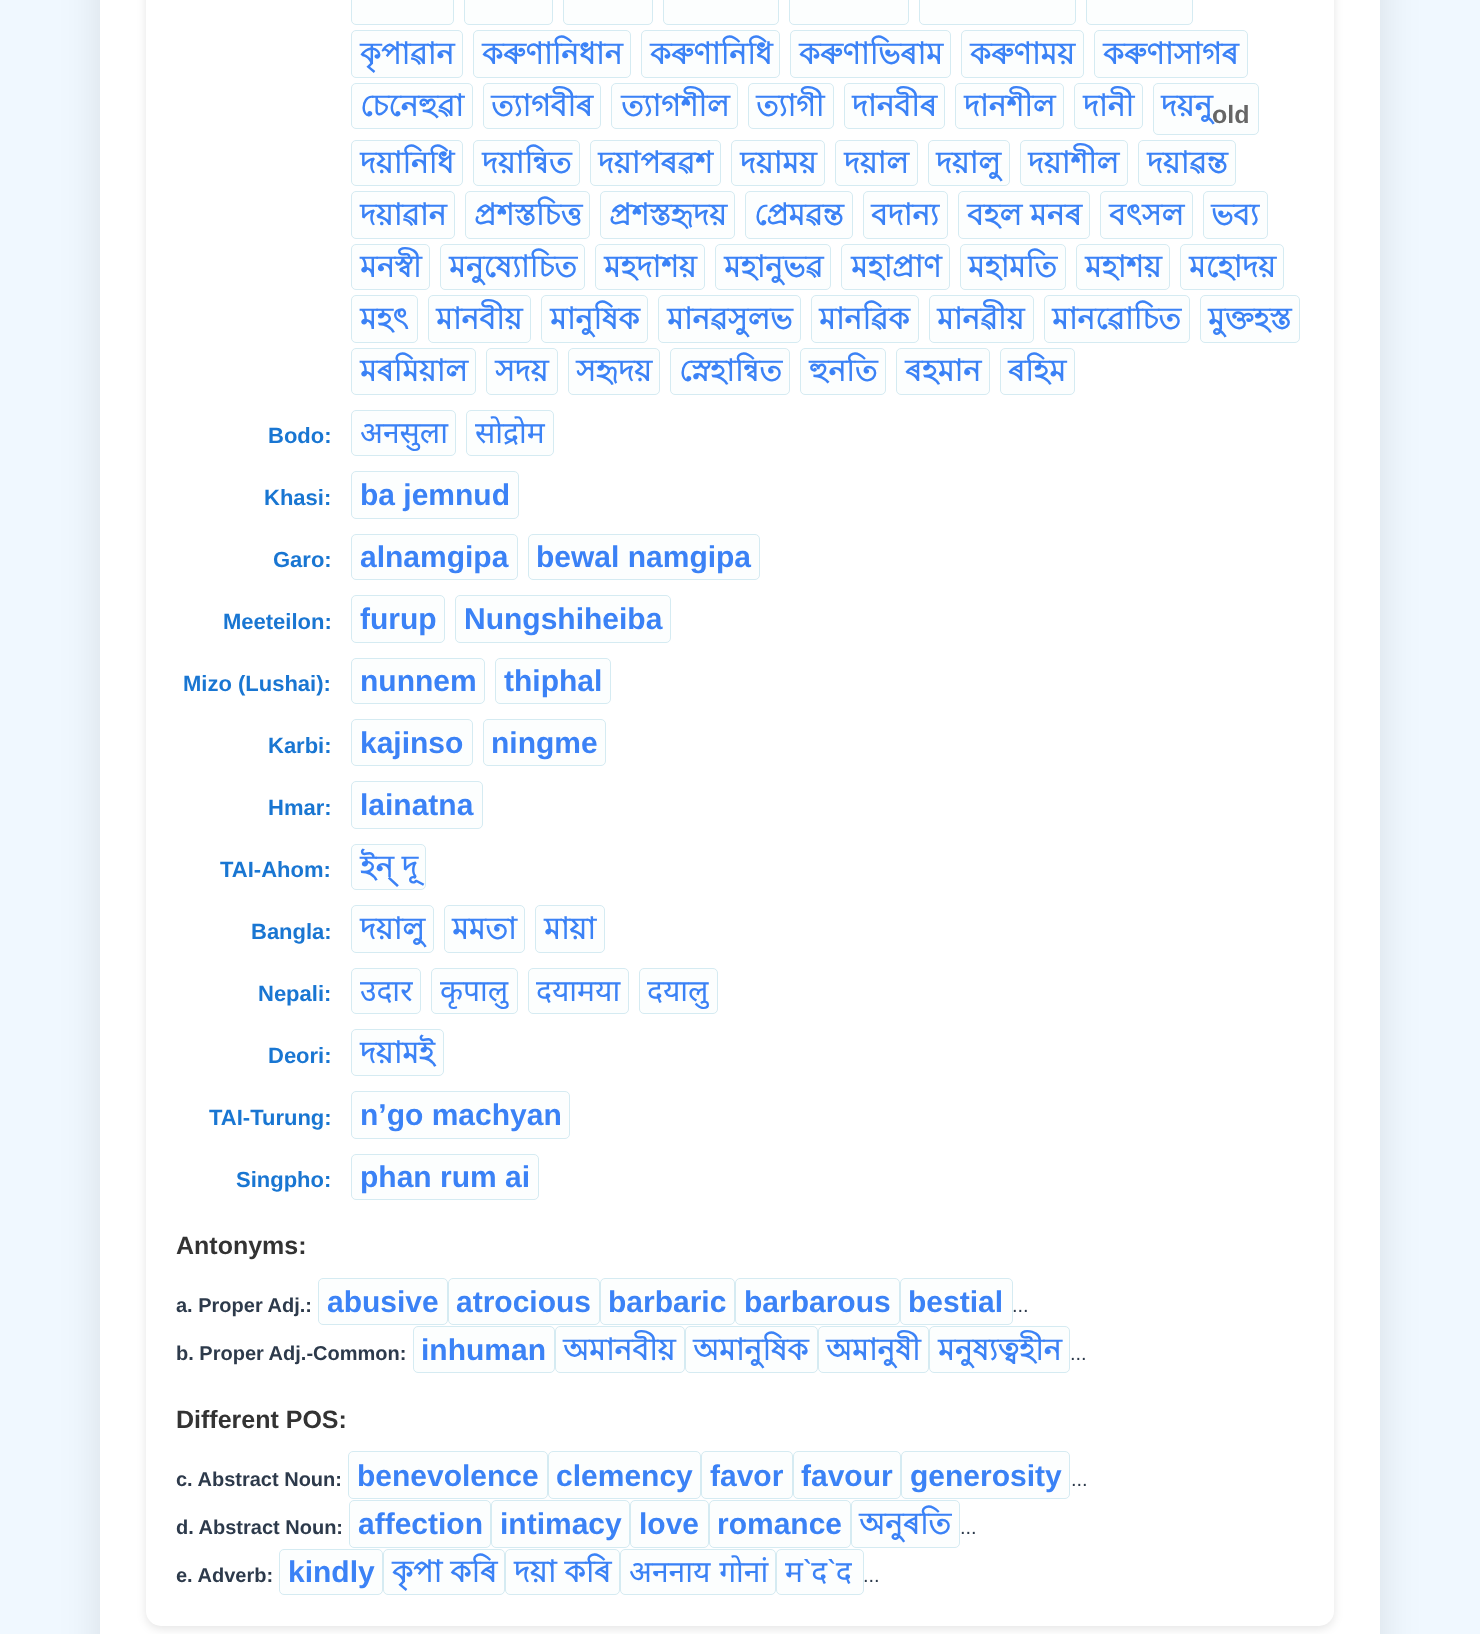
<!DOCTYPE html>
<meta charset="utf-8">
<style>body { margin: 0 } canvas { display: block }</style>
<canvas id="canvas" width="1480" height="1634"></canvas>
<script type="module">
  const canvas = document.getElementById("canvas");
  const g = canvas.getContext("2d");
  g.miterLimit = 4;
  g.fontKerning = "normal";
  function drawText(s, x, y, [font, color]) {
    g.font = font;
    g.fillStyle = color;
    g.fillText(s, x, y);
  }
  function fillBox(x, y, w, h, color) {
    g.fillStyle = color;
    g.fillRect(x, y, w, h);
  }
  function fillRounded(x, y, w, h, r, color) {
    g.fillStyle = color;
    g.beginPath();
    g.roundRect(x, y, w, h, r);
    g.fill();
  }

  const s1 = ["bold 30px Lohit Bengali", "#3B82F6"];
  const s2 = ["bold 25px Liberation Sans", "#666666"];
  const s3 = ["bold 22px Liberation Sans", "#1976D2"];
  const s4 = ["30px Noto Sans", "#3B82F6"];
  const s5 = ["bold 30px Liberation Sans", "#3B82F6"];
  const s6 = ["bold 25px Liberation Sans", "#333333"];
  const s7 = ["bold 20px Liberation Sans", "#2D3A4B"];
  const s8 = ["20px Liberation Sans", "#2D3A4B"];

  fillBox(0, 0, 1480, 1634, "#F0F8FF");
  g.fillStyle = "rgba(0, 0, 0, 0.1)";
  g.filter = "blur(20px)";
  g.beginPath();
  g.rect(100, -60, 1280, 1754);
  g.fill();
  g.filter = "none";
  fillBox(100, 0, 1280, 1634, "#FFFFFF");
  g.fillStyle = "rgba(0, 0, 0, 0.1)";
  g.filter = "blur(5px)";
  g.beginPath();
  g.roundRect(146, -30, 1188, 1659, 15);
  g.fill();
  g.filter = "none";
  fillRounded(146, -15, 1188, 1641, 15, "#FFFFFF");
  g.fillStyle = "#FCFEFE";
  g.beginPath();
  g.roundRect(351.5, -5.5, 102, 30, 4.5);
  g.fill();
  g.strokeStyle = "#D5EBF2";
  g.stroke();
  g.beginPath();
  g.roundRect(464.5, -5.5, 88, 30, 4.5);
  g.fill();
  g.stroke();
  g.beginPath();
  g.roundRect(563.5, -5.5, 89, 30, 4.5);
  g.fill();
  g.stroke();
  g.beginPath();
  g.roundRect(663.5, -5.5, 115, 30, 4.5);
  g.fill();
  g.stroke();
  g.beginPath();
  g.roundRect(789.5, -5.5, 119, 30, 4.5);
  g.fill();
  g.stroke();
  g.beginPath();
  g.roundRect(919.5, -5.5, 156, 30, 4.5);
  g.fill();
  g.stroke();
  g.beginPath();
  g.roundRect(1086.5, -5.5, 106, 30, 4.5);
  g.fill();
  g.stroke();
  g.beginPath();
  g.roundRect(351.5, 30.5, 111, 47, 4.5);
  g.fill();
  g.stroke();
  drawText("কৃপাৱান", 360, 64, s1);
  g.fillStyle = "#FCFEFE";
  g.beginPath();
  g.roundRect(473.5, 30.5, 157, 47, 4.5);
  g.fill();
  g.stroke();
  drawText("কৰুণানিধান", 482, 64, s1);
  g.fillStyle = "#FCFEFE";
  g.beginPath();
  g.roundRect(641.5, 30.5, 138, 47, 4.5);
  g.fill();
  g.stroke();
  drawText("কৰুণানিধি", 650, 64, s1);
  g.fillStyle = "#FCFEFE";
  g.beginPath();
  g.roundRect(790.5, 30.5, 160, 47, 4.5);
  g.fill();
  g.stroke();
  drawText("কৰুণাভিৰাম", 799, 64, s1);
  g.fillStyle = "#FCFEFE";
  g.beginPath();
  g.roundRect(961.5, 30.5, 122, 47, 4.5);
  g.fill();
  g.stroke();
  drawText("কৰুণাময়", 970, 64, s1);
  g.fillStyle = "#FCFEFE";
  g.beginPath();
  g.roundRect(1094.5, 30.5, 153, 47, 4.5);
  g.fill();
  g.stroke();
  drawText("কৰুণাসাগৰ", 1103, 64, s1);
  g.fillStyle = "#FCFEFE";
  g.beginPath();
  g.roundRect(351.5, 83.5, 121, 45, 4.5);
  g.fill();
  g.stroke();
  drawText("চেনেহুৱা", 360, 116, s1);
  g.fillStyle = "#FCFEFE";
  g.beginPath();
  g.roundRect(483.5, 83.5, 117, 45, 4.5);
  g.fill();
  g.stroke();
  drawText("ত্যাগবীৰ", 491, 116, s1);
  g.fillStyle = "#FCFEFE";
  g.beginPath();
  g.roundRect(611.5, 83.5, 126, 45, 4.5);
  g.fill();
  g.stroke();
  drawText("ত্যাগশীল", 621, 116, s1);
  g.fillStyle = "#FCFEFE";
  g.beginPath();
  g.roundRect(748.5, 83.5, 85, 45, 4.5);
  g.fill();
  g.stroke();
  drawText("ত্যাগী", 756, 116, s1);
  g.fillStyle = "#FCFEFE";
  g.beginPath();
  g.roundRect(844.5, 83.5, 100, 45, 4.5);
  g.fill();
  g.stroke();
  drawText("দানবীৰ", 852, 116, s1);
  g.fillStyle = "#FCFEFE";
  g.beginPath();
  g.roundRect(955.5, 83.5, 108, 45, 4.5);
  g.fill();
  g.stroke();
  drawText("দানশীল", 964, 116, s1);
  g.fillStyle = "#FCFEFE";
  g.beginPath();
  g.roundRect(1074.5, 83.5, 68, 45, 4.5);
  g.fill();
  g.stroke();
  drawText("দানী", 1083, 116, s1);
  g.fillStyle = "#FCFEFE";
  g.beginPath();
  g.roundRect(1153.5, 83.5, 105, 51, 4.5);
  g.fill();
  g.stroke();
  drawText("দয়নু", 1161, 116, s1);
  drawText("old", 1212, 123, s2);
  g.fillStyle = "#FCFEFE";
  g.beginPath();
  g.roundRect(351.5, 140.5, 111, 45, 4.5);
  g.fill();
  g.stroke();
  drawText("দয়ানিধি", 360, 173, s1);
  g.fillStyle = "#FCFEFE";
  g.beginPath();
  g.roundRect(473.5, 140.5, 106, 45, 4.5);
  g.fill();
  g.stroke();
  drawText("দয়ান্বিত", 482, 173, s1);
  g.fillStyle = "#FCFEFE";
  g.beginPath();
  g.roundRect(590.5, 140.5, 130, 45, 4.5);
  g.fill();
  g.stroke();
  drawText("দয়াপৰৱশ", 598, 173, s1);
  g.fillStyle = "#FCFEFE";
  g.beginPath();
  g.roundRect(731.5, 140.5, 93, 45, 4.5);
  g.fill();
  g.stroke();
  drawText("দয়াময়", 740, 173, s1);
  g.fillStyle = "#FCFEFE";
  g.beginPath();
  g.roundRect(835.5, 140.5, 82, 45, 4.5);
  g.fill();
  g.stroke();
  drawText("দয়াল", 844, 173, s1);
  g.fillStyle = "#FCFEFE";
  g.beginPath();
  g.roundRect(928.5, 140.5, 81, 45, 4.5);
  g.fill();
  g.stroke();
  drawText("দয়ালু", 936, 173, s1);
  g.fillStyle = "#FCFEFE";
  g.beginPath();
  g.roundRect(1020.5, 140.5, 107, 45, 4.5);
  g.fill();
  g.stroke();
  drawText("দয়াশীল", 1028, 173, s1);
  g.fillStyle = "#FCFEFE";
  g.beginPath();
  g.roundRect(1138.5, 140.5, 97, 45, 4.5);
  g.fill();
  g.stroke();
  drawText("দয়াৱন্ত", 1147, 173, s1);
  g.fillStyle = "#FCFEFE";
  g.beginPath();
  g.roundRect(351.5, 191.5, 103, 47, 4.5);
  g.fill();
  g.stroke();
  drawText("দয়াৱান", 360, 225, s1);
  g.fillStyle = "#FCFEFE";
  g.beginPath();
  g.roundRect(465.5, 191.5, 124, 47, 4.5);
  g.fill();
  g.stroke();
  drawText("প্ৰশস্তচিত্ত", 474, 225, s1);
  g.fillStyle = "#FCFEFE";
  g.beginPath();
  g.roundRect(600.5, 191.5, 134, 47, 4.5);
  g.fill();
  g.stroke();
  drawText("প্ৰশস্তহৃদয়", 609, 225, s1);
  g.fillStyle = "#FCFEFE";
  g.beginPath();
  g.roundRect(745.5, 191.5, 107, 47, 4.5);
  g.fill();
  g.stroke();
  drawText("প্ৰেমৱন্ত", 754, 225, s1);
  g.fillStyle = "#FCFEFE";
  g.beginPath();
  g.roundRect(863.5, 191.5, 84, 47, 4.5);
  g.fill();
  g.stroke();
  drawText("বদান্য", 871, 225, s1);
  g.fillStyle = "#FCFEFE";
  g.beginPath();
  g.roundRect(958.5, 191.5, 131, 47, 4.5);
  g.fill();
  g.stroke();
  drawText("বহল মনৰ", 967, 225, s1);
  g.fillStyle = "#FCFEFE";
  g.beginPath();
  g.roundRect(1100.5, 191.5, 92, 47, 4.5);
  g.fill();
  g.stroke();
  drawText("বৎসল", 1109, 225, s1);
  g.fillStyle = "#FCFEFE";
  g.beginPath();
  g.roundRect(1203.5, 191.5, 64, 47, 4.5);
  g.fill();
  g.stroke();
  drawText("ভব্য", 1211, 225, s1);
  g.fillStyle = "#FCFEFE";
  g.beginPath();
  g.roundRect(351.5, 244.5, 78, 45, 4.5);
  g.fill();
  g.stroke();
  drawText("মনস্বী", 360, 277, s1);
  g.fillStyle = "#FCFEFE";
  g.beginPath();
  g.roundRect(440.5, 244.5, 144, 45, 4.5);
  g.fill();
  g.stroke();
  drawText("মনুষ্যোচিত", 449, 277, s1);
  g.fillStyle = "#FCFEFE";
  g.beginPath();
  g.roundRect(595.5, 244.5, 109, 45, 4.5);
  g.fill();
  g.stroke();
  drawText("মহদাশয়", 604, 277, s1);
  g.fillStyle = "#FCFEFE";
  g.beginPath();
  g.roundRect(715.5, 244.5, 115, 45, 4.5);
  g.fill();
  g.stroke();
  drawText("মহানুভৱ", 724, 277, s1);
  g.fillStyle = "#FCFEFE";
  g.beginPath();
  g.roundRect(841.5, 244.5, 108, 45, 4.5);
  g.fill();
  g.stroke();
  drawText("মহাপ্ৰাণ", 851, 277, s1);
  g.fillStyle = "#FCFEFE";
  g.beginPath();
  g.roundRect(960.5, 244.5, 105, 45, 4.5);
  g.fill();
  g.stroke();
  drawText("মহামতি", 968, 277, s1);
  g.fillStyle = "#FCFEFE";
  g.beginPath();
  g.roundRect(1076.5, 244.5, 93, 45, 4.5);
  g.fill();
  g.stroke();
  drawText("মহাশয়", 1085, 277, s1);
  g.fillStyle = "#FCFEFE";
  g.beginPath();
  g.roundRect(1180.5, 244.5, 103, 45, 4.5);
  g.fill();
  g.stroke();
  drawText("মহোদয়", 1189, 277, s1);
  g.fillStyle = "#FCFEFE";
  g.beginPath();
  g.roundRect(351.5, 295.5, 66, 47, 4.5);
  g.fill();
  g.stroke();
  drawText("মহৎ", 360, 329, s1);
  g.fillStyle = "#FCFEFE";
  g.beginPath();
  g.roundRect(428.5, 295.5, 102, 47, 4.5);
  g.fill();
  g.stroke();
  drawText("মানবীয়", 436, 329, s1);
  g.fillStyle = "#FCFEFE";
  g.beginPath();
  g.roundRect(541.5, 295.5, 106, 47, 4.5);
  g.fill();
  g.stroke();
  drawText("মানুষিক", 550, 329, s1);
  g.fillStyle = "#FCFEFE";
  g.beginPath();
  g.roundRect(658.5, 295.5, 142, 47, 4.5);
  g.fill();
  g.stroke();
  drawText("মানৱসুলভ", 667, 329, s1);
  g.fillStyle = "#FCFEFE";
  g.beginPath();
  g.roundRect(811.5, 295.5, 107, 47, 4.5);
  g.fill();
  g.stroke();
  drawText("মানৱিক", 819, 329, s1);
  g.fillStyle = "#FCFEFE";
  g.beginPath();
  g.roundRect(929.5, 295.5, 104, 47, 4.5);
  g.fill();
  g.stroke();
  drawText("মানৱীয়", 937, 329, s1);
  g.fillStyle = "#FCFEFE";
  g.beginPath();
  g.roundRect(1044.5, 295.5, 145, 47, 4.5);
  g.fill();
  g.stroke();
  drawText("মানৱোচিত", 1052, 329, s1);
  g.fillStyle = "#FCFEFE";
  g.beginPath();
  g.roundRect(1200.5, 295.5, 99, 47, 4.5);
  g.fill();
  g.stroke();
  drawText("মুক্তহস্ত", 1208, 329, s1);
  g.fillStyle = "#FCFEFE";
  g.beginPath();
  g.roundRect(351.5, 348.5, 124, 46, 4.5);
  g.fill();
  g.stroke();
  drawText("মৰমিয়াল", 360, 381, s1);
  g.fillStyle = "#FCFEFE";
  g.beginPath();
  g.roundRect(486.5, 348.5, 71, 46, 4.5);
  g.fill();
  g.stroke();
  drawText("সদয়", 495, 381, s1);
  g.fillStyle = "#FCFEFE";
  g.beginPath();
  g.roundRect(568.5, 348.5, 91, 46, 4.5);
  g.fill();
  g.stroke();
  drawText("সহৃদয়", 576, 381, s1);
  g.fillStyle = "#FCFEFE";
  g.beginPath();
  g.roundRect(670.5, 348.5, 119, 46, 4.5);
  g.fill();
  g.stroke();
  drawText("স্নেহান্বিত", 679, 381, s1);
  g.fillStyle = "#FCFEFE";
  g.beginPath();
  g.roundRect(800.5, 348.5, 85, 46, 4.5);
  g.fill();
  g.stroke();
  drawText("হুনতি", 809, 381, s1);
  g.fillStyle = "#FCFEFE";
  g.beginPath();
  g.roundRect(896.5, 348.5, 93, 46, 4.5);
  g.fill();
  g.stroke();
  drawText("ৰহমান", 905, 381, s1);
  g.fillStyle = "#FCFEFE";
  g.beginPath();
  g.roundRect(1000.5, 348.5, 74, 46, 4.5);
  g.fill();
  g.stroke();
  drawText("ৰহিম", 1008, 381, s1);
  drawText("Bodo:", 268, 443, s3);
  g.fillStyle = "#FCFEFE";
  g.beginPath();
  g.roundRect(351.5, 410.5, 104, 45, 4.5);
  g.fill();
  g.stroke();
  drawText("अनसुला", 360, 443, s4);
  g.fillStyle = "#FCFEFE";
  g.beginPath();
  g.roundRect(466.5, 410.5, 87, 45, 4.5);
  g.fill();
  g.stroke();
  drawText("सोद्रोम", 475, 443, s4);
  drawText("Khasi:", 264, 505, s3);
  g.fillStyle = "#FCFEFE";
  g.beginPath();
  g.roundRect(351.5, 471.5, 167, 47, 4.5);
  g.fill();
  g.stroke();
  drawText("ba jemnud", 360, 505, s5);
  drawText("Garo:", 273, 567, s3);
  g.fillStyle = "#FCFEFE";
  g.beginPath();
  g.roundRect(351.5, 534.5, 166, 45, 4.5);
  g.fill();
  g.stroke();
  drawText("alnamgipa", 360, 567, s5);
  g.fillStyle = "#FCFEFE";
  g.beginPath();
  g.roundRect(528.5, 534.5, 231, 45, 4.5);
  g.fill();
  g.stroke();
  drawText("bewal namgipa", 536, 567, s5);
  drawText("Meeteilon:", 223, 629, s3);
  g.fillStyle = "#FCFEFE";
  g.beginPath();
  g.roundRect(351.5, 595.5, 93, 47, 4.5);
  g.fill();
  g.stroke();
  drawText("furup", 360, 629, s5);
  g.fillStyle = "#FCFEFE";
  g.beginPath();
  g.roundRect(455.5, 595.5, 215, 47, 4.5);
  g.fill();
  g.stroke();
  drawText("Nungshiheiba", 464, 629, s5);
  drawText("Mizo (Lushai):", 183, 691, s3);
  g.fillStyle = "#FCFEFE";
  g.beginPath();
  g.roundRect(351.5, 658.5, 133, 45, 4.5);
  g.fill();
  g.stroke();
  drawText("nunnem", 360, 691, s5);
  g.fillStyle = "#FCFEFE";
  g.beginPath();
  g.roundRect(495.5, 658.5, 115, 45, 4.5);
  g.fill();
  g.stroke();
  drawText("thiphal", 504, 691, s5);
  drawText("Karbi:", 268, 753, s3);
  g.fillStyle = "#FCFEFE";
  g.beginPath();
  g.roundRect(351.5, 719.5, 121, 46, 4.5);
  g.fill();
  g.stroke();
  drawText("kajinso", 360, 753, s5);
  g.fillStyle = "#FCFEFE";
  g.beginPath();
  g.roundRect(483.5, 719.5, 122, 46, 4.5);
  g.fill();
  g.stroke();
  drawText("ningme", 491, 753, s5);
  drawText("Hmar:", 268, 815, s3);
  g.fillStyle = "#FCFEFE";
  g.beginPath();
  g.roundRect(351.5, 781.5, 131, 47, 4.5);
  g.fill();
  g.stroke();
  drawText("lainatna", 360, 815, s5);
  drawText("TAI-Ahom:", 220, 877, s3);
  g.fillStyle = "#FCFEFE";
  g.beginPath();
  g.roundRect(351.5, 844.5, 74, 45, 4.5);
  g.fill();
  g.stroke();
  drawText("ইন্ দূ", 360, 877, s1);
  drawText("Bangla:", 251, 939, s3);
  g.fillStyle = "#FCFEFE";
  g.beginPath();
  g.roundRect(351.5, 905.5, 82, 47, 4.5);
  g.fill();
  g.stroke();
  drawText("দয়ালু", 360, 939, s1);
  g.fillStyle = "#FCFEFE";
  g.beginPath();
  g.roundRect(444.5, 905.5, 80, 47, 4.5);
  g.fill();
  g.stroke();
  drawText("মমতা", 452, 939, s1);
  g.fillStyle = "#FCFEFE";
  g.beginPath();
  g.roundRect(535.5, 905.5, 69, 47, 4.5);
  g.fill();
  g.stroke();
  drawText("মায়া", 544, 939, s1);
  drawText("Nepali:", 258, 1001, s3);
  g.fillStyle = "#FCFEFE";
  g.beginPath();
  g.roundRect(351.5, 968.5, 69, 45, 4.5);
  g.fill();
  g.stroke();
  drawText("उदार", 360, 1001, s4);
  g.fillStyle = "#FCFEFE";
  g.beginPath();
  g.roundRect(431.5, 968.5, 86, 45, 4.5);
  g.fill();
  g.stroke();
  drawText("कृपालु", 440, 1001, s4);
  g.fillStyle = "#FCFEFE";
  g.beginPath();
  g.roundRect(528.5, 968.5, 100, 45, 4.5);
  g.fill();
  g.stroke();
  drawText("दयामया", 536, 1001, s4);
  g.fillStyle = "#FCFEFE";
  g.beginPath();
  g.roundRect(639.5, 968.5, 78, 45, 4.5);
  g.fill();
  g.stroke();
  drawText("दयालु", 647, 1001, s4);
  drawText("Deori:", 268, 1063, s3);
  g.fillStyle = "#FCFEFE";
  g.beginPath();
  g.roundRect(351.5, 1029.5, 92, 46, 4.5);
  g.fill();
  g.stroke();
  drawText("দয়ামই", 360, 1063, s1);
  drawText("TAI-Turung:", 209, 1125, s3);
  g.fillStyle = "#FCFEFE";
  g.beginPath();
  g.roundRect(351.5, 1091.5, 218, 47, 4.5);
  g.fill();
  g.stroke();
  drawText("n’go machyan", 360, 1125, s5);
  drawText("Singpho:", 236, 1187, s3);
  g.fillStyle = "#FCFEFE";
  g.beginPath();
  g.roundRect(351.5, 1154.5, 187, 45, 4.5);
  g.fill();
  g.stroke();
  drawText("phan rum ai", 360, 1187, s5);
  drawText("Antonyms:", 176, 1254, s6);
  drawText("a. Proper Adj.:", 176, 1312, s7);
  g.fillStyle = "#FCFEFE";
  g.beginPath();
  g.roundRect(318.5, 1278.5, 129, 46, 4.5);
  g.fill();
  g.stroke();
  drawText("abusive", 327, 1312, s5);
  g.fillStyle = "#FCFEFE";
  g.beginPath();
  g.roundRect(448.5, 1278.5, 151, 46, 4.5);
  g.fill();
  g.stroke();
  drawText("atrocious", 456, 1312, s5);
  g.fillStyle = "#FCFEFE";
  g.beginPath();
  g.roundRect(600.5, 1278.5, 134, 46, 4.5);
  g.fill();
  g.stroke();
  drawText("barbaric", 608, 1312, s5);
  g.fillStyle = "#FCFEFE";
  g.beginPath();
  g.roundRect(735.5, 1278.5, 164, 46, 4.5);
  g.fill();
  g.stroke();
  drawText("barbarous", 744, 1312, s5);
  g.fillStyle = "#FCFEFE";
  g.beginPath();
  g.roundRect(900.5, 1278.5, 112, 46, 4.5);
  g.fill();
  g.stroke();
  drawText("bestial", 908, 1312, s5);
  drawText("...", 1012, 1312, s8);
  drawText("b. Proper Adj.-Common:", 176, 1360, s7);
  g.fillStyle = "#FCFEFE";
  g.beginPath();
  g.roundRect(413.5, 1326.5, 141, 46, 4.5);
  g.fill();
  g.stroke();
  drawText("inhuman", 421, 1360, s5);
  g.fillStyle = "#FCFEFE";
  g.beginPath();
  g.roundRect(555.5, 1326.5, 129, 46, 4.5);
  g.fill();
  g.stroke();
  drawText("অমানবীয়", 563, 1360, s1);
  g.fillStyle = "#FCFEFE";
  g.beginPath();
  g.roundRect(685.5, 1326.5, 132, 46, 4.5);
  g.fill();
  g.stroke();
  drawText("অমানুষিক", 693, 1360, s1);
  g.fillStyle = "#FCFEFE";
  g.beginPath();
  g.roundRect(818.5, 1326.5, 110, 46, 4.5);
  g.fill();
  g.stroke();
  drawText("অমানুষী", 826, 1360, s1);
  g.fillStyle = "#FCFEFE";
  g.beginPath();
  g.roundRect(929.5, 1326.5, 140, 46, 4.5);
  g.fill();
  g.stroke();
  drawText("মনুষ্যত্বহীন", 938, 1360, s1);
  drawText("...", 1070, 1360, s8);
  drawText("Different POS:", 176, 1428, s6);
  drawText("c. Abstract Noun:", 176, 1486, s7);
  g.fillStyle = "#FCFEFE";
  g.beginPath();
  g.roundRect(348.5, 1451.5, 199, 47, 4.5);
  g.fill();
  g.stroke();
  drawText("benevolence", 357, 1486, s5);
  g.fillStyle = "#FCFEFE";
  g.beginPath();
  g.roundRect(548.5, 1451.5, 152, 47, 4.5);
  g.fill();
  g.stroke();
  drawText("clemency", 556, 1486, s5);
  g.fillStyle = "#FCFEFE";
  g.beginPath();
  g.roundRect(701.5, 1451.5, 91, 47, 4.5);
  g.fill();
  g.stroke();
  drawText("favor", 710, 1486, s5);
  g.fillStyle = "#FCFEFE";
  g.beginPath();
  g.roundRect(793.5, 1451.5, 107, 47, 4.5);
  g.fill();
  g.stroke();
  drawText("favour", 801, 1486, s5);
  g.fillStyle = "#FCFEFE";
  g.beginPath();
  g.roundRect(901.5, 1451.5, 168, 47, 4.5);
  g.fill();
  g.stroke();
  drawText("generosity", 910, 1486, s5);
  drawText("...", 1071, 1486, s8);
  drawText("d. Abstract Noun:", 176, 1534, s7);
  g.fillStyle = "#FCFEFE";
  g.beginPath();
  g.roundRect(349.5, 1500.5, 141, 47, 4.5);
  g.fill();
  g.stroke();
  drawText("affection", 358, 1534, s5);
  g.fillStyle = "#FCFEFE";
  g.beginPath();
  g.roundRect(491.5, 1500.5, 138, 47, 4.5);
  g.fill();
  g.stroke();
  drawText("intimacy", 500, 1534, s5);
  g.fillStyle = "#FCFEFE";
  g.beginPath();
  g.roundRect(630.5, 1500.5, 78, 47, 4.5);
  g.fill();
  g.stroke();
  drawText("love", 639, 1534, s5);
  g.fillStyle = "#FCFEFE";
  g.beginPath();
  g.roundRect(709.5, 1500.5, 141, 47, 4.5);
  g.fill();
  g.stroke();
  drawText("romance", 717, 1534, s5);
  g.fillStyle = "#FCFEFE";
  g.beginPath();
  g.roundRect(851.5, 1500.5, 108, 47, 4.5);
  g.fill();
  g.stroke();
  drawText("অনুৰতি", 859, 1534, s1);
  drawText("...", 960, 1534, s8);
  drawText("e. Adverb:", 176, 1582, s7);
  g.fillStyle = "#FCFEFE";
  g.beginPath();
  g.roundRect(279.5, 1549.5, 103, 45, 4.5);
  g.fill();
  g.stroke();
  drawText("kindly", 288, 1582, s5);
  g.fillStyle = "#FCFEFE";
  g.beginPath();
  g.roundRect(383.5, 1549.5, 121, 45, 4.5);
  g.fill();
  g.stroke();
  drawText("কৃপা কৰি", 392, 1582, s1);
  g.fillStyle = "#FCFEFE";
  g.beginPath();
  g.roundRect(505.5, 1549.5, 114, 45, 4.5);
  g.fill();
  g.stroke();
  drawText("দয়া কৰি", 514, 1582, s1);
  g.fillStyle = "#FCFEFE";
  g.beginPath();
  g.roundRect(620.5, 1549.5, 155, 45, 4.5);
  g.fill();
  g.stroke();
  g.wordSpacing = "1px";
  drawText("अननाय गोनां", 629, 1582, s4);
  g.fillStyle = "#FCFEFE";
  g.beginPath();
  g.roundRect(776.5, 1549.5, 87, 45, 4.5);
  g.fill();
  g.stroke();
  g.wordSpacing = "0px";
  drawText("म`द`द", 785, 1582, s4);
  drawText("...", 863, 1582, s8);
</script>
